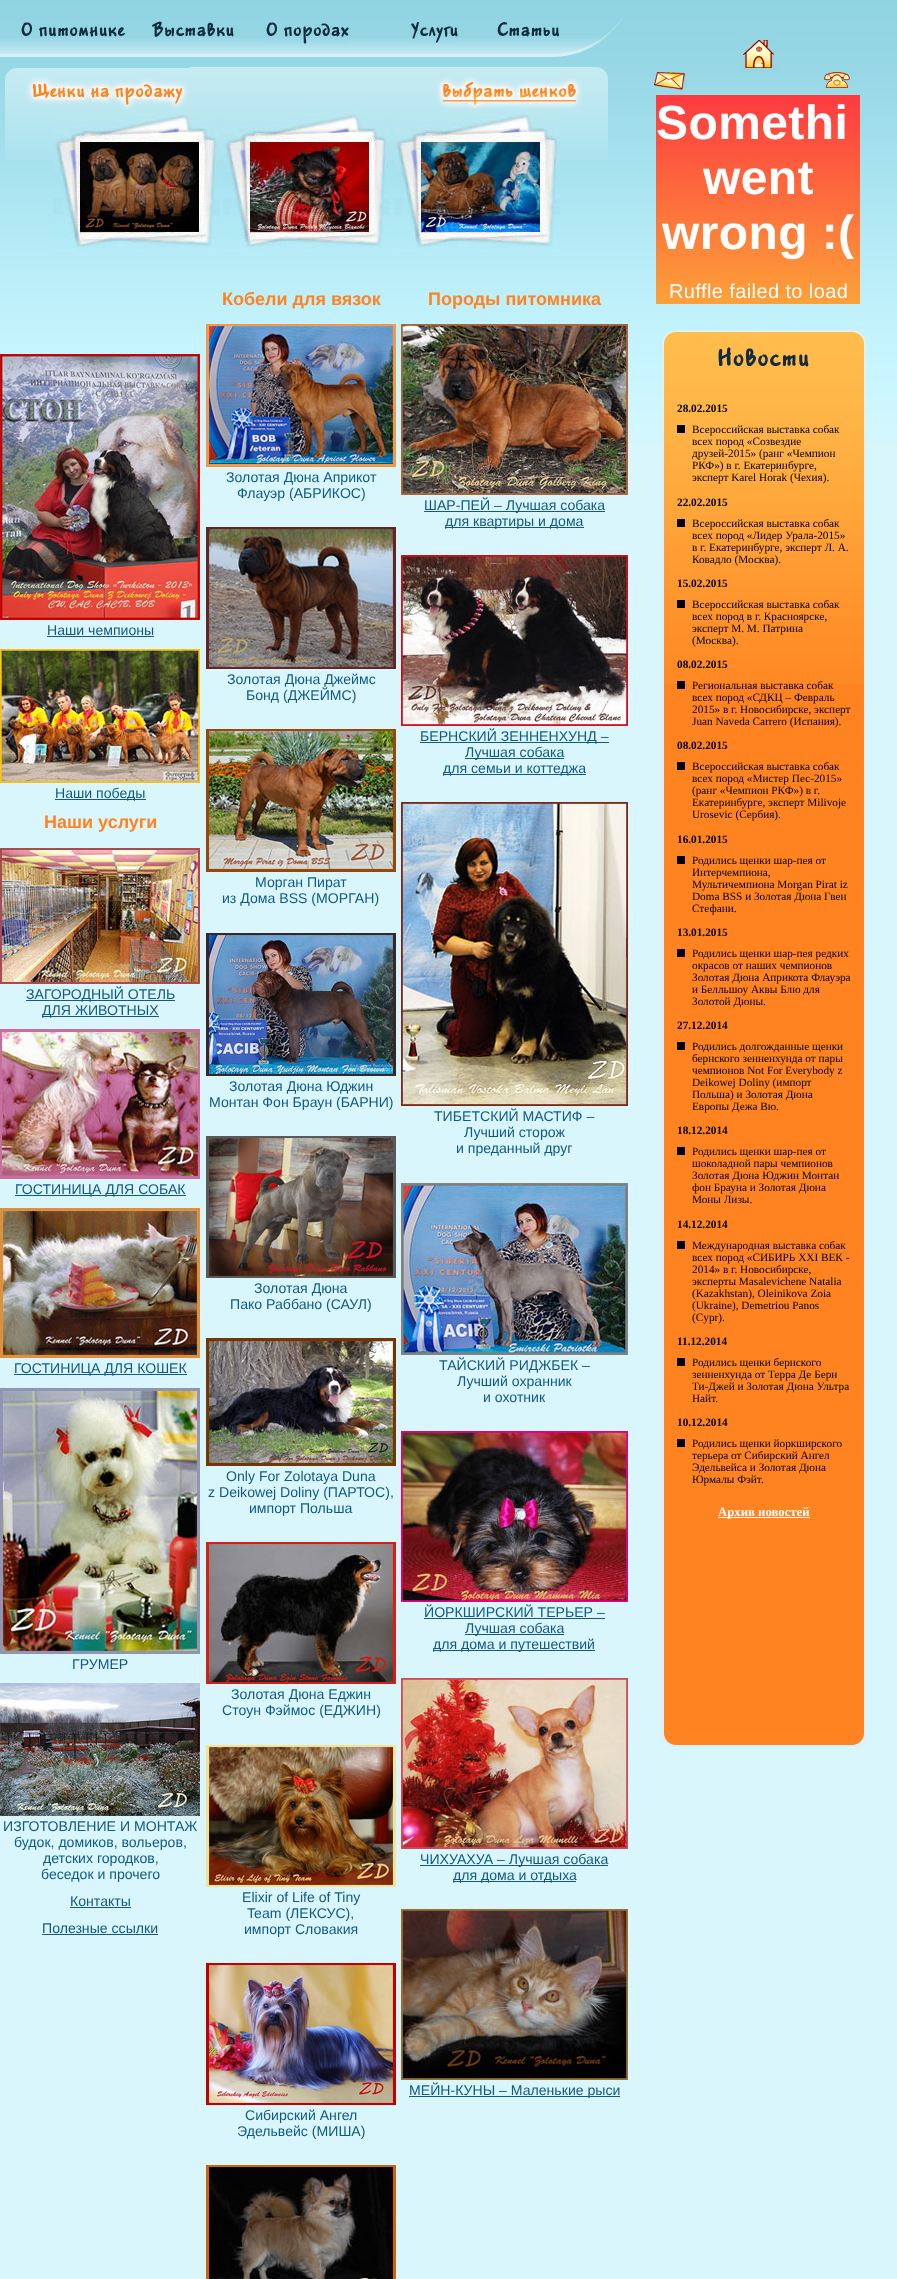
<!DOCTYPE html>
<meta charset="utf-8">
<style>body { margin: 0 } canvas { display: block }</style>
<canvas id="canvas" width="897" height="2279"></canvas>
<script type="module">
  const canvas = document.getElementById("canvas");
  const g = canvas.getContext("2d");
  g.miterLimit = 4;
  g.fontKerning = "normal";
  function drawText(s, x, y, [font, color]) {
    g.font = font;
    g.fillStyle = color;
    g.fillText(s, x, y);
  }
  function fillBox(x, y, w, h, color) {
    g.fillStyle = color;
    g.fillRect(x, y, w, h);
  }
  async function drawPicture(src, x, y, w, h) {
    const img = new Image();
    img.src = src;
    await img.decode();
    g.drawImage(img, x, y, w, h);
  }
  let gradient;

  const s1 = ["bold 48px Liberation Sans", "#FFFFFF"];
  const s2 = ["20px Liberation Sans", "#FFFFFF"];
  const s3 = ["14.1px Liberation Sans", "#125985"];
  const s4 = ["bold 18px Liberation Sans", "#FF8320"];
  const s5 = ["bold 11.25px Liberation Serif", "#000000"];
  const s6 = ["11.25px Liberation Serif", "#000000"];
  const s7 = ["bold 12.75px Liberation Serif", "#FFFFFF"];

  fillBox(0, 0, 897, 2279, "#D9F6FD");
  await drawPicture("pic1.png", 0, 0, 897, 443);
  await drawPicture("pic2.png", 0, 38, 555, 19);
  await drawPicture("pic3.png", 555, 14, 73, 43);
  await drawPicture("pic4.png", 19, 22, 106, 15);
  await drawPicture("pic5.png", 151, 21, 83, 16);
  await drawPicture("pic6.png", 264, 22, 85, 22);
  await drawPicture("pic7.png", 409, 22, 49, 21);
  await drawPicture("pic8.png", 496, 22, 63, 15);
  await drawPicture("pic9.png", 739, 35, 39, 38);
  await drawPicture("pic10.png", 650, 68, 39, 26);
  await drawPicture("pic11.png", 819, 67, 1, 26);
  await drawPicture("pic12.png", 820, 67, 34, 26);
  gradient = g.createLinearGradient(758, 95, 758, 304);
  gradient.addColorStop(0, "#FD3A40");
  gradient.addColorStop(1, "#FDA138");
  g.fillStyle = gradient;
  g.fillRect(656, 95, 204, 209);
  g.letterSpacing = "0.4px";
  drawText("Somethi", 656, 139, s1);
  drawText("went", 703, 194, s1);
  drawText("wrong :(", 662, 249, s1);
  drawText("Ruffle failed to load", 669, 298, s2);
  await drawPicture("pic13.png", 5, 67, 603, 93);
  await drawPicture("pic14.png", 5, 67, 185, 43);
  await drawPicture("pic15.png", 431, 69, 151, 41);
  await drawPicture("pic16.png", 597, 67, 11, 10);
  await drawPicture("pic17.png", 6, 70, 138, 15);
  await drawPicture("pic18.png", 53, 111, 166, 140);
  await drawPicture("pic19.png", 223, 111, 166, 140);
  await drawPicture("pic20.png", 394, 111, 166, 140);
  await drawPicture("pic21.png", 0, 354, 200, 266);
  g.letterSpacing = "0px";
  drawText("Наши чемпионы", 47, 635, s3);
  fillBox(47, 636, 107, 1, "#125985");
  await drawPicture("pic22.png", 0, 649, 200, 134);
  fillBox(55, 799, 91, 1, "#125985");
  drawText("Наши победы", 55, 798, s3);
  drawText("Наши услуги", 44, 828, s4);
  await drawPicture("pic23.png", 0, 848, 200, 136);
  fillBox(26, 1000, 149, 1, "#125985");
  drawText("ЗАГОРОДНЫЙ ОТЕЛЬ", 26, 999, s3);
  fillBox(42, 1016, 117, 1, "#125985");
  drawText("ДЛЯ ЖИВОТНЫХ", 42, 1015, s3);
  await drawPicture("pic24.png", 0, 1029, 200, 150);
  fillBox(15, 1195, 171, 1, "#125985");
  drawText("ГОСТИНИЦА ДЛЯ СОБАК", 15, 1194, s3);
  await drawPicture("pic25.png", 0, 1208, 200, 150);
  fillBox(14, 1374, 173, 1, "#125985");
  drawText("ГОСТИНИЦА ДЛЯ КОШЕК", 14, 1373, s3);
  await drawPicture("pic26.png", 0, 1388, 200, 266);
  drawText("ГРУМЕР", 72, 1669, s3);
  await drawPicture("pic27.png", 0, 1683, 200, 133);
  drawText("ИЗГОТОВЛЕНИЕ И МОНТАЖ", 3, 1831, s3);
  drawText("будок, домиков, вольеров,", 14, 1847, s3);
  drawText("детских городков,", 43, 1863, s3);
  drawText("беседок и прочего", 41, 1879, s3);
  drawText("Контакты", 70, 1906, s3);
  fillBox(70, 1907, 61, 1, "#125985");
  drawText("Полезные ссылки", 42, 1933, s3);
  fillBox(42, 1934, 116, 1, "#125985");
  drawText("Кобели для вязок", 222, 305, s4);
  await drawPicture("pic28.png", 206, 324, 190, 143);
  drawText("Золотая Дюна Априкот", 226, 482, s3);
  drawText("Флауэр (АБРИКОС)", 237, 498, s3);
  await drawPicture("pic29.png", 206, 527, 190, 142);
  drawText("Золотая Дюна Джеймс", 227, 684, s3);
  drawText("Бонд (ДЖЕЙМС)", 246, 700, s3);
  await drawPicture("pic30.png", 206, 729, 190, 143);
  drawText("Морган Пират", 255, 887, s3);
  drawText("из Дома BSS (МОРГАН)", 222, 903, s3);
  await drawPicture("pic31.png", 206, 933, 190, 143);
  drawText("Золотая Дюна Юджин", 229, 1091, s3);
  drawText("Монтан Фон Браун (БАРНИ)", 209, 1107, s3);
  await drawPicture("pic32.png", 206, 1136, 190, 142);
  drawText("Золотая Дюна", 254, 1293, s3);
  drawText("Пако Раббано (САУЛ)", 230, 1309, s3);
  await drawPicture("pic33.png", 206, 1338, 190, 128);
  drawText("Only For Zolotaya Duna", 226, 1481, s3);
  drawText("z Deikowej Doliny (ПАРТОС),", 208, 1497, s3);
  drawText("импорт Польша", 249, 1513, s3);
  await drawPicture("pic34.png", 206, 1542, 190, 142);
  drawText("Золотая Дюна Еджин", 231, 1699, s3);
  drawText("Стоун Фэймос (ЕДЖИН)", 222, 1715, s3);
  await drawPicture("pic35.png", 206, 1745, 190, 142);
  drawText("Elixir of Life of Tiny", 242, 1902, s3);
  drawText("Team (ЛЕКСУС),", 247, 1918, s3);
  drawText("импорт Словакия", 244, 1934, s3);
  await drawPicture("pic36.png", 206, 1963, 190, 142);
  drawText("Сибирский Ангел", 245, 2120, s3);
  drawText("Эдельвейс (МИША)", 237, 2136, s3);
  await drawPicture("pic37.png", 206, 2165, 190, 114);
  drawText("Породы питомника", 428, 305, s4);
  await drawPicture("pic38.png", 401, 324, 227, 171);
  fillBox(424, 511, 181, 1, "#125985");
  drawText("ШАР-ПЕЙ – Лучшая собака", 424, 510, s3);
  fillBox(445, 527, 139, 1, "#125985");
  drawText("для квартиры и дома", 445, 526, s3);
  await drawPicture("pic39.png", 401, 555, 227, 171);
  fillBox(420, 742, 189, 1, "#125985");
  drawText("БЕРНСКИЙ ЗЕННЕНХУНД –", 420, 741, s3);
  fillBox(465, 758, 99, 1, "#125985");
  drawText("Лучшая собака", 465, 757, s3);
  fillBox(443, 774, 143, 1, "#125985");
  drawText("для семьи и коттеджа", 443, 773, s3);
  await drawPicture("pic40.png", 401, 802, 227, 304);
  drawText("ТИБЕТСКИЙ МАСТИФ –", 434, 1121, s3);
  drawText("Лучший сторож", 464, 1137, s3);
  drawText("и преданный друг", 456, 1153, s3);
  await drawPicture("pic41.png", 401, 1183, 227, 172);
  drawText("ТАЙСКИЙ РИДЖБЕК –", 439, 1370, s3);
  drawText("Лучший охранник", 457, 1386, s3);
  drawText("и охотник", 483, 1402, s3);
  await drawPicture("pic42.png", 401, 1431, 227, 171);
  drawText("ЙОРКШИРСКИЙ ТЕРЬЕР –", 424, 1617, s3);
  fillBox(424, 1618, 181, 1, "#125985");
  fillBox(465, 1634, 99, 1, "#125985");
  drawText("Лучшая собака", 465, 1633, s3);
  fillBox(433, 1650, 162, 1, "#125985");
  drawText("для дома и путешествий", 433, 1649, s3);
  await drawPicture("pic43.png", 401, 1678, 227, 171);
  fillBox(420, 1865, 188, 1, "#125985");
  drawText("ЧИХУАХУА – Лучшая собака", 420, 1864, s3);
  fillBox(453, 1881, 123, 1, "#125985");
  drawText("для дома и отдыха", 453, 1880, s3);
  await drawPicture("pic44.png", 401, 1909, 227, 171);
  fillBox(409, 2096, 211, 1, "#125985");
  drawText("МЕЙН-КУНЫ – Маленькие рыси", 409, 2095, s3);
  fillBox(864, 341, 2, 1400, "#DCF2F7");
  await drawPicture("pic45.png", 662, 330, 203, 37);
  fillBox(664, 684, 200, 1049, "#FF8421");
  await drawPicture("pic46.png", 664, 367, 200, 317);
  fillBox(662, 367, 2, 1374, "#DCF2F7");
  await drawPicture("pic47.png", 664, 1733, 200, 14);
  drawText("28.02.2015", 677, 412, s5);
  fillBox(677, 425, 8, 8, "#000000");
  drawText("Всероссийская выставка собак", 692, 433, s6);
  drawText("всех пород «Созвездие", 692, 445, s6);
  drawText("друзей-2015» (ранг «Чемпион", 692, 457, s6);
  drawText("РКФ») в г. Екатеринбурге,", 692, 469, s6);
  drawText("эксперт Karel Horak (Чехия).", 692, 481, s6);
  drawText("22.02.2015", 677, 506, s5);
  fillBox(677, 519, 8, 8, "#000000");
  drawText("Всероссийская выставка собак", 692, 527, s6);
  drawText("всех пород «Лидер Урала-2015»", 692, 539, s6);
  drawText("в г. Екатеринбурге, эксперт Л. А.", 692, 551, s6);
  drawText("Ковадло (Москва).", 692, 563, s6);
  drawText("15.02.2015", 677, 587, s5);
  fillBox(677, 600, 8, 8, "#000000");
  drawText("Всероссийская выставка собак", 692, 608, s6);
  drawText("всех пород в г. Красноярске,", 692, 620, s6);
  drawText("эксперт М. М. Патрина", 692, 632, s6);
  drawText("(Москва).", 692, 644, s6);
  drawText("08.02.2015", 677, 668, s5);
  fillBox(677, 681, 8, 8, "#000000");
  drawText("Региональная выставка собак", 692, 689, s6);
  drawText("всех пород «СДКЦ – Февраль", 692, 701, s6);
  drawText("2015» в г. Новосибирске, эксперт", 692, 713, s6);
  drawText("Juan Naveda Carrero (Испания).", 692, 725, s6);
  drawText("08.02.2015", 677, 749, s5);
  fillBox(677, 762, 8, 8, "#000000");
  drawText("Всероссийская выставка собак", 692, 770, s6);
  drawText("всех пород «Мистер Пес-2015»", 692, 782, s6);
  drawText("(ранг «Чемпион РКФ») в г.", 692, 794, s6);
  drawText("Екатеринбурге, эксперт Milivoje", 692, 806, s6);
  drawText("Urosevic (Сербия).", 692, 818, s6);
  drawText("16.01.2015", 677, 843, s5);
  fillBox(677, 856, 8, 8, "#000000");
  drawText("Родились щенки шар-пея от", 692, 864, s6);
  drawText("Интерчемпиона,", 692, 876, s6);
  drawText("Мультичемпиона Morgan Pirat iz", 692, 888, s6);
  drawText("Doma BSS и Золотая Дюна Гвен", 692, 900, s6);
  drawText("Стефани.", 692, 912, s6);
  drawText("13.01.2015", 677, 936, s5);
  fillBox(677, 949, 8, 8, "#000000");
  drawText("Родились щенки шар-пея редких", 692, 957, s6);
  drawText("окрасов от наших чемпионов", 692, 969, s6);
  drawText("Золотая Дюна Априкота Флауэра", 692, 981, s6);
  drawText("и Белльшоу Аквы Блю для", 692, 993, s6);
  drawText("Золотой Дюны.", 692, 1005, s6);
  drawText("27.12.2014", 677, 1029, s5);
  fillBox(677, 1042, 8, 8, "#000000");
  drawText("Родились долгожданные щенки", 692, 1050, s6);
  drawText("бернского зенненхунда от пары", 692, 1062, s6);
  drawText("чемпионов Not For Everybody z", 692, 1074, s6);
  drawText("Deikowej Doliny (импорт", 692, 1086, s6);
  drawText("Польша) и Золотая Дюна", 692, 1098, s6);
  drawText("Европы Дежа Вю.", 692, 1110, s6);
  drawText("18.12.2014", 677, 1134, s5);
  fillBox(677, 1147, 8, 8, "#000000");
  drawText("Родились щенки шар-пея от", 692, 1155, s6);
  drawText("шоколадной пары чемпионов", 692, 1167, s6);
  drawText("Золотая Дюна Юджин Монтан", 692, 1179, s6);
  drawText("фон Брауна и Золотая Дюна", 692, 1191, s6);
  drawText("Моны Лизы.", 692, 1203, s6);
  drawText("14.12.2014", 677, 1228, s5);
  fillBox(677, 1241, 8, 8, "#000000");
  drawText("Международная выставка собак", 692, 1249, s6);
  drawText("всех пород «СИБИРЬ XXI ВЕК -", 692, 1261, s6);
  drawText("2014» в г. Новосибирске,", 692, 1273, s6);
  drawText("эксперты Masalevichene Natalia", 692, 1285, s6);
  drawText("(Kazakhstan), Oleinikova Zoia", 692, 1297, s6);
  drawText("(Ukraine), Demetriou Panos", 692, 1309, s6);
  drawText("(Cypr).", 692, 1321, s6);
  drawText("11.12.2014", 677, 1345, s5);
  fillBox(677, 1358, 8, 8, "#000000");
  drawText("Родились щенки бернского", 692, 1366, s6);
  drawText("зенненхунда от Терра Де Берн", 692, 1378, s6);
  drawText("Ти-Джей и Золотая Дюна Ультра", 692, 1390, s6);
  drawText("Найт.", 692, 1402, s6);
  drawText("10.12.2014", 677, 1426, s5);
  fillBox(677, 1439, 8, 8, "#000000");
  drawText("Родились щенки йоркширского", 692, 1447, s6);
  drawText("терьера от Сибирский Ангел", 692, 1459, s6);
  drawText("Эдельвейса и Золотая Дюна", 692, 1471, s6);
  drawText("Юрмалы Фэйт.", 692, 1483, s6);
  fillBox(718, 1517, 92, 1, "#FFFFFF");
  drawText("Архив новостей", 718, 1516, s7);
</script>
